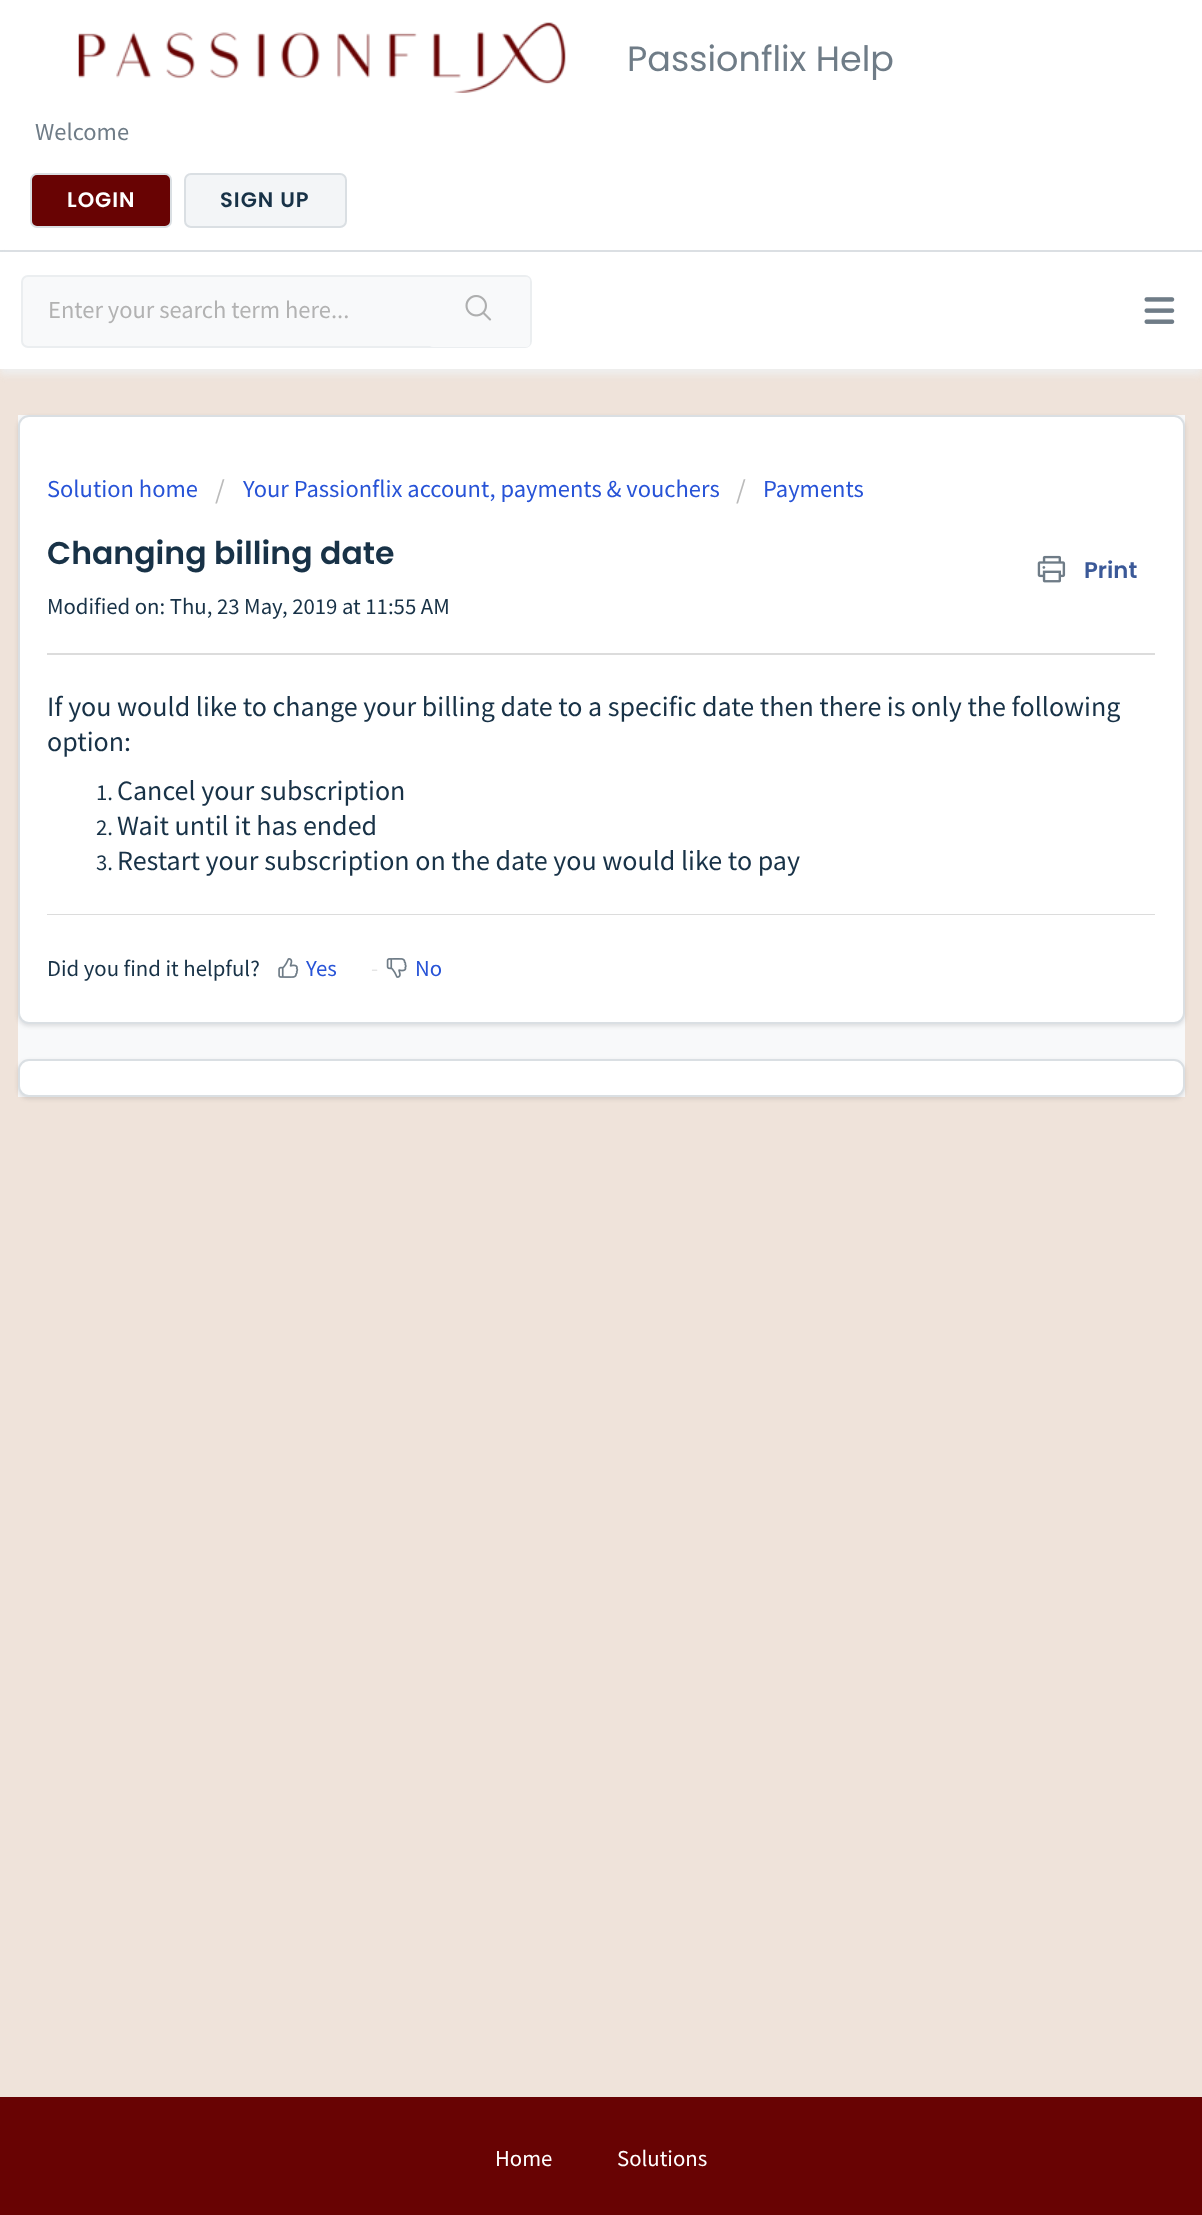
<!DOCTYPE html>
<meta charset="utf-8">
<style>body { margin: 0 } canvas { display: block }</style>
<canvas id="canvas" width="1202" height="2215"></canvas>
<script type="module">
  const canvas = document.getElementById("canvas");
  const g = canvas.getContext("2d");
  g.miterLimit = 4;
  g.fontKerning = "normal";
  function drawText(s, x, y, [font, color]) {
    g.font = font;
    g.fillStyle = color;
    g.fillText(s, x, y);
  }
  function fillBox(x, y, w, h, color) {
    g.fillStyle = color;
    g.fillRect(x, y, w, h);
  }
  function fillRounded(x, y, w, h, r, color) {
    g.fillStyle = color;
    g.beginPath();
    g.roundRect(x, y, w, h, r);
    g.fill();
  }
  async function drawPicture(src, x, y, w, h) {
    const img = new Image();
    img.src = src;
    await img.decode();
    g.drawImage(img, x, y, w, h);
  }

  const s1 = ["35px Poppins", "#6F7C87"];
  const s2 = ["24.5px Source Sans Pro", "#6F7C87"];
  const s3 = ["600 21px Poppins", "#FFFFFF"];
  const s4 = ["600 21px Poppins", "#183247"];
  const s5 = ["24.5px Source Sans Pro", "#B2B2B2"];
  const s6 = ["24.5px Source Sans Pro", "#2753D7"];
  const s7 = ["28px Source Sans Pro", "#BBBBBB"];
  const s8 = ["600 31.5px Poppins", "#183247"];
  const s9 = ["600 22.75px Poppins", "#3B5998"];
  const s10 = ["22.75px Source Sans Pro", "#183247"];
  const s11 = ["28px Source Sans Pro", "#183247"];
  const s12 = ["22.75px Source Sans Pro", "#2753D7"];
  const s13 = ["22.75px Source Sans Pro", "#E5E5E5"];
  const s14 = ["22.75px Source Sans Pro", "#FFFFFF"];

  fillBox(0, 0, 1202, 2215, "#EFE3DA");
  fillBox(0, 0, 1202, 250, "#FFFFFF");
  fillBox(0, 250, 1202, 2, "#DADFE3");
  await drawPicture("pic1.png", 78, 22, 488, 71);
  drawText("Passionflix Help", 627, 71, s1);
  drawText("Welcome", 35, 140, s2);
  g.fillStyle = "#680303";
  g.beginPath();
  g.roundRect(31, 174, 140, 53, 6);
  g.fill();
  g.strokeStyle = "#DADFE3";
  g.lineWidth = 2;
  g.stroke();
  g.letterSpacing = "1px";
  drawText("LOGIN", 67, 207, s3);
  g.fillStyle = "#F3F5F7";
  g.beginPath();
  g.roundRect(185, 174, 161, 53, 6);
  g.fill();
  g.stroke();
  drawText("SIGN UP", 220, 207, s4);
  g.fillStyle = "#EEEEEE";
  g.filter = "blur(3.5px)";
  g.beginPath();
  g.rect(0, 257, 1202, 118);
  g.fill();
  g.filter = "none";
  fillBox(0, 252, 1202, 117, "#FFFFFF");
  await drawPicture("pic2.png", 1144, 297, 31, 27);
  g.fillStyle = "#F8F9FA";
  g.beginPath();
  g.roundRect(22, 276, 509, 71, 6);
  g.fill();
  g.strokeStyle = "#EBEEF0";
  g.stroke();
  g.letterSpacing = "0px";
  drawText("Enter your search term here...", 48, 318, s5);
  fillRounded(429, 277, 101, 70, 4, "#F8F9FA");
  await drawPicture("pic3.png", 465, 295, 27, 26);
  fillBox(18, 415, 1167, 682, "#F8F9FA");
  g.fillStyle = "rgba(63, 63, 68, 0.15)";
  g.filter = "blur(2px)";
  g.beginPath();
  g.roundRect(18, 417, 1167, 609, 11);
  g.fill();
  g.filter = "none";
  g.fillStyle = "#FFFFFF";
  g.beginPath();
  g.roundRect(19, 416, 1165, 607, 10);
  g.fill();
  g.strokeStyle = "#DADFE3";
  g.stroke();
  drawText("Solution home", 47, 497, s6);
  drawText("/", 215, 499, s7);
  drawText("Your Passionflix account, payments & vouchers", 243, 497, s6);
  drawText("/", 736, 499, s7);
  drawText("Payments", 763, 497, s6);
  drawText("Changing billing date", 47, 564, s8);
  await drawPicture("pic4.png", 1037, 555, 29, 28);
  drawText("Print", 1084, 578, s9);
  drawText("Modified on: Thu, 23 May, 2019 at 11:55 AM", 47, 614, s10);
  fillBox(47, 653, 1108, 2, "#DCDCDC");
  drawText("If you would like to change your billing date to a specific date then there is only the following", 47, 716, s11);
  drawText("option:", 47, 751, s11);
  drawText("1.", 96, 800, s10);
  drawText("Cancel your subscription", 117, 800, s11);
  drawText("2.", 96, 835, s10);
  drawText("Wait until it has ended", 117, 835, s11);
  drawText("3.", 96, 870, s10);
  drawText("Restart your subscription on the date you would like to pay", 117, 870, s11);
  fillBox(47, 914, 1108, 1, "#DCDCDC");
  drawText("Did you find it helpful?", 47, 976, s10);
  await drawPicture("pic5.png", 278, 958, 21, 20);
  drawText("Yes", 306, 976, s12);
  drawText("-", 371, 976, s13);
  await drawPicture("pic6.png", 386, 958, 21, 20);
  drawText("No", 415, 976, s12);
  g.fillStyle = "rgba(63, 63, 68, 0.15)";
  g.filter = "blur(2px)";
  g.beginPath();
  g.roundRect(18, 1061, 1167, 38, 11);
  g.fill();
  g.filter = "none";
  g.fillStyle = "#FFFFFF";
  g.beginPath();
  g.roundRect(19, 1060, 1165, 36, 10);
  g.fill();
  g.stroke();
  fillBox(0, 2097, 1202, 118, "#680303");
  drawText("Home", 495, 2166, s14);
  drawText("Solutions", 617, 2166, s14);
</script>
